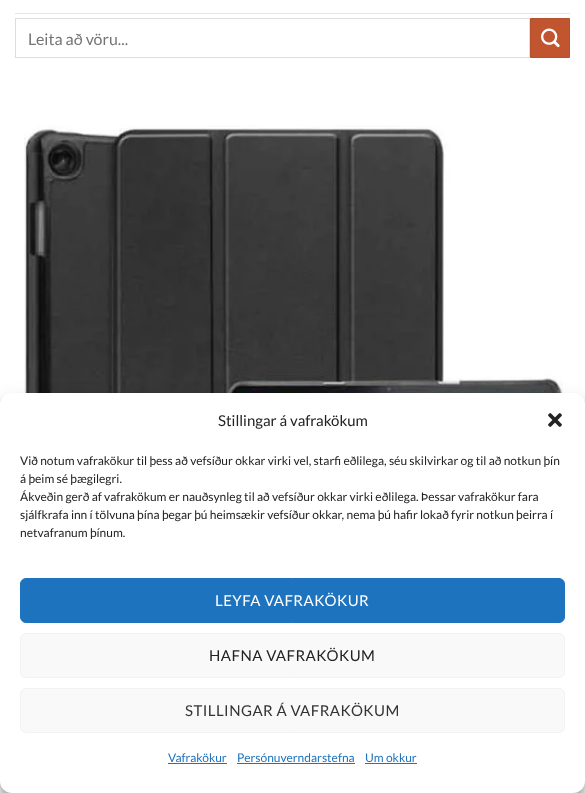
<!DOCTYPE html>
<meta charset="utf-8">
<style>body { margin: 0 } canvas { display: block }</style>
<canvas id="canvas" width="585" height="793"></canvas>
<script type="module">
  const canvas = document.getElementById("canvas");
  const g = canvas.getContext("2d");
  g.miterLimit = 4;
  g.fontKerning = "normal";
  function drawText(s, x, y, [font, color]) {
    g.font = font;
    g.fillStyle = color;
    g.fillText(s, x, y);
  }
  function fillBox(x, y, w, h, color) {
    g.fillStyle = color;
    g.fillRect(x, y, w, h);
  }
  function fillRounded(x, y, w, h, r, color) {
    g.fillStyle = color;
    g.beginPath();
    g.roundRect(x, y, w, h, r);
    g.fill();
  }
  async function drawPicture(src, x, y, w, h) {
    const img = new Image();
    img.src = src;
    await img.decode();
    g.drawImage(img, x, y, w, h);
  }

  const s1 = ["16px Lato", "#757575"];
  const s2 = ["15px Lato", "#222222"];
  const s3 = ["12px Lato", "#222222"];
  const s4 = ["15px Lato", "#FFFFFF"];
  const s5 = ["15px Lato", "#333333"];
  const s6 = ["12px Lato", "#1E73BE"];

  fillBox(0, 0, 585, 793, "#FFFFFF");
  fillBox(15, 13, 555, 1, "#E6E6E6");
  g.strokeStyle = "#DDDDDD";
  g.strokeRect(15.5, 18.5, 514, 39);
  drawText("Leita að vöru...", 28, 45, s1);
  g.fillStyle = "#C05530";
  g.beginPath();
  g.rect(530.5, 18.5, 39, 39);
  g.fill();
  g.strokeStyle = "#B6512E";
  g.stroke();
  await drawPicture("pic1.png", 541, 28, 19, 20);
  await drawPicture("pic2.png", 24, 125, 539, 268);
  g.fillStyle = "rgba(0, 0, 0, 0.23)";
  g.filter = "blur(3px)";
  g.beginPath();
  g.roundRect(0, 399, 585, 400, 12);
  g.fill();
  g.filter = "none";
  g.fillStyle = "rgba(0, 0, 0, 0.19)";
  g.filter = "blur(10px)";
  g.beginPath();
  g.roundRect(0, 403, 585, 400, 12);
  g.fill();
  g.filter = "none";
  g.fillStyle = "#808080";
  g.filter = "blur(2.5px)";
  g.beginPath();
  g.roundRect(515, 719, 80, 60, 2);
  g.fill();
  g.filter = "none";
  fillRounded(0, 393, 585, 400, 12, "#FFFFFF");
  drawText("Stillingar á vafrakökum", 218, 426, s2);
  await drawPicture("pic3.png", 548, 413, 14, 14);
  drawText("Við notum vafrakökur til þess að vefsíður okkar virki vel, starfi eðlilega, séu skilvirkar og til að notkun þín", 20, 465, s3);
  drawText("á þeim sé þægilegri.", 20, 483, s3);
  drawText("Ákveðin gerð af vafrakökum er nauðsynleg til að vefsíður okkar virki eðlilega. Þessar vafrakökur fara", 20, 501, s3);
  drawText("sjálfkrafa inn í tölvuna þína þegar þú heimsækir vefsíður okkar, nema þú hafir lokað fyrir notkun þeirra í", 20, 519, s3);
  drawText("netvafranum þínum.", 20, 537, s3);
  g.fillStyle = "#1E73BE";
  g.beginPath();
  g.roundRect(20.5, 578.5, 544, 44, 5.5);
  g.fill();
  g.strokeStyle = "#1E73BE";
  g.stroke();
  g.letterSpacing = "0.45px";
  drawText("LEYFA VAFRAKÖKUR", 215, 606, s4);
  g.fillStyle = "#F9F9F9";
  g.beginPath();
  g.roundRect(20.5, 633.5, 544, 44, 5.5);
  g.fill();
  g.strokeStyle = "#F2F2F2";
  g.stroke();
  drawText("HAFNA VAFRAKÖKUM", 209, 661, s2);
  g.fillStyle = "#F9F9F9";
  g.beginPath();
  g.roundRect(20.5, 688.5, 544, 44, 5.5);
  g.fill();
  g.stroke();
  drawText("STILLINGAR Á VAFRAKÖKUM", 185, 716, s5);
  g.letterSpacing = "0px";
  drawText("Vafrakökur", 168, 762, s6);
  fillBox(168, 763, 59, 1, "#1E73BE");
  drawText("Persónuverndarstefna", 237, 762, s6);
  fillBox(237, 763, 118, 1, "#1E73BE");
  drawText("Um okkur", 365, 762, s6);
  fillBox(365, 763, 52, 1, "#1E73BE");
</script>
